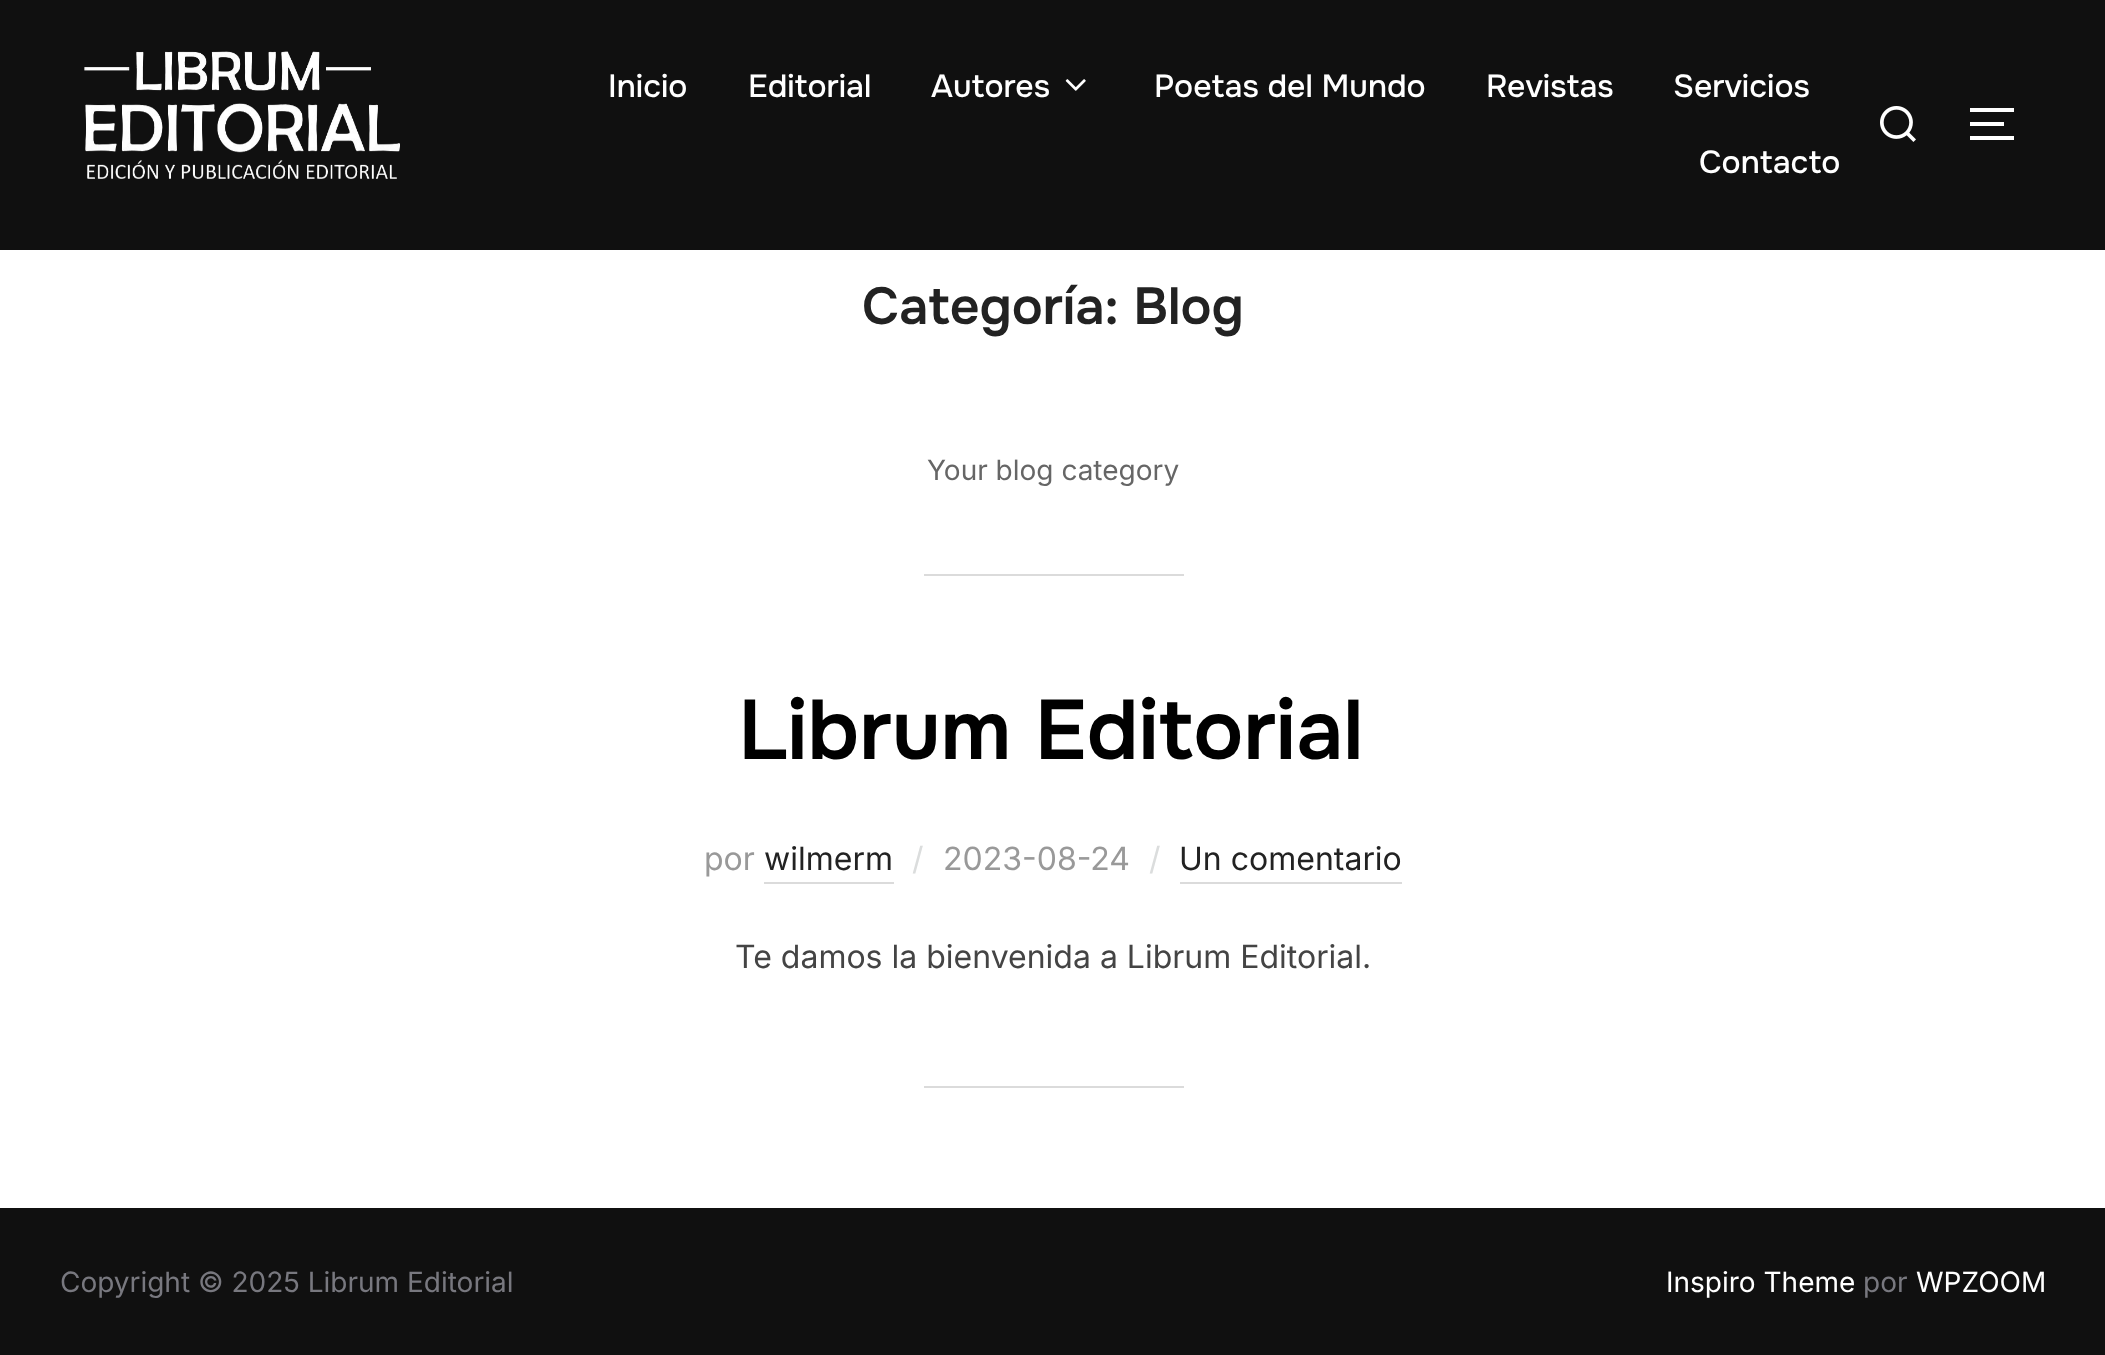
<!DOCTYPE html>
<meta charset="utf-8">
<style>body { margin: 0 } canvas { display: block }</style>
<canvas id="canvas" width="2105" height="1355"></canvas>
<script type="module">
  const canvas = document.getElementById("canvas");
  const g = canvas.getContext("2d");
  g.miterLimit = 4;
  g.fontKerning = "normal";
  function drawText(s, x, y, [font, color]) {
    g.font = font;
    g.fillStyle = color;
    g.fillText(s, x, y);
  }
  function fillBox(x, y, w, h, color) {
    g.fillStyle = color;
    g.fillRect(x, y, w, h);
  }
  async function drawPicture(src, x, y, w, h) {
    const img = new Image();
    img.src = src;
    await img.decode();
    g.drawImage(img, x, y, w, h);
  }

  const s1 = ["500 32px Onest", "#FFFFFF"];
  const s2 = ["600 52px Onest", "#222222"];
  const s3 = ["28px Inter", "#666666"];
  const s4 = ["600 84px Onest", "#000000"];
  const s5 = ["32px Inter", "#999999"];
  const s6 = ["32px Inter", "#222222"];
  const s7 = ["32px Inter", "#DBDDDD"];
  const s8 = ["32px Inter", "#444444"];
  const s9 = ["28px Inter", "#78787F"];
  const s10 = ["28px Inter", "#FFFFFF"];

  fillBox(0, 0, 2105, 1355, "#FFFFFF");
  fillBox(0, 0, 2105, 250, "#101010");
  await drawPicture("pic1.png", 84, 51, 316, 128);
  drawText("Inicio", 608, 97, s1);
  drawText("Editorial", 748, 97, s1);
  drawText("Autores", 931, 97, s1);
  await drawPicture("pic2.png", 1065, 79, 21, 12);
  drawText("Poetas del Mundo", 1154, 97, s1);
  drawText("Revistas", 1486, 97, s1);
  drawText("Servicios", 1673, 97, s1);
  drawText("Contacto", 1699, 173, s1);
  await drawPicture("pic3.png", 1880, 106, 36, 36);
  fillBox(1970, 108, 44, 4, "#FFFFFF");
  fillBox(1970, 122, 34, 4, "#FFFFFF");
  fillBox(1970, 136, 44, 4, "#FFFFFF");
  drawText("Categoría: Blog", 862, 324, s2);
  drawText("Your blog category", 927, 480, s3);
  fillBox(924, 574, 260, 2, "#DBDBDB");
  drawText("Librum Editorial", 738, 759, s4);
  drawText("por", 704, 870, s5);
  fillBox(764, 882, 130, 2, "#DBDBDB");
  drawText("wilmerm", 764, 870, s6);
  drawText("/", 912, 870, s7);
  drawText("2023-08-24", 943, 870, s5);
  drawText("/", 1149, 870, s7);
  drawText("Un comentario", 1179, 870, s6);
  fillBox(1180, 882, 222, 2, "#DBDBDB");
  drawText("Te damos la bienvenida a Librum Editorial.", 735, 968, s8);
  fillBox(924, 1086, 260, 2, "#DBDBDB");
  fillBox(0, 1208, 2105, 147, "#101010");
  drawText("Copyright © 2025 Librum Editorial", 60, 1292, s9);
  drawText("Inspiro Theme", 1666, 1292, s10);
  drawText("por", 1863, 1292, s9);
  drawText("WPZOOM", 1916, 1292, s10);
</script>
